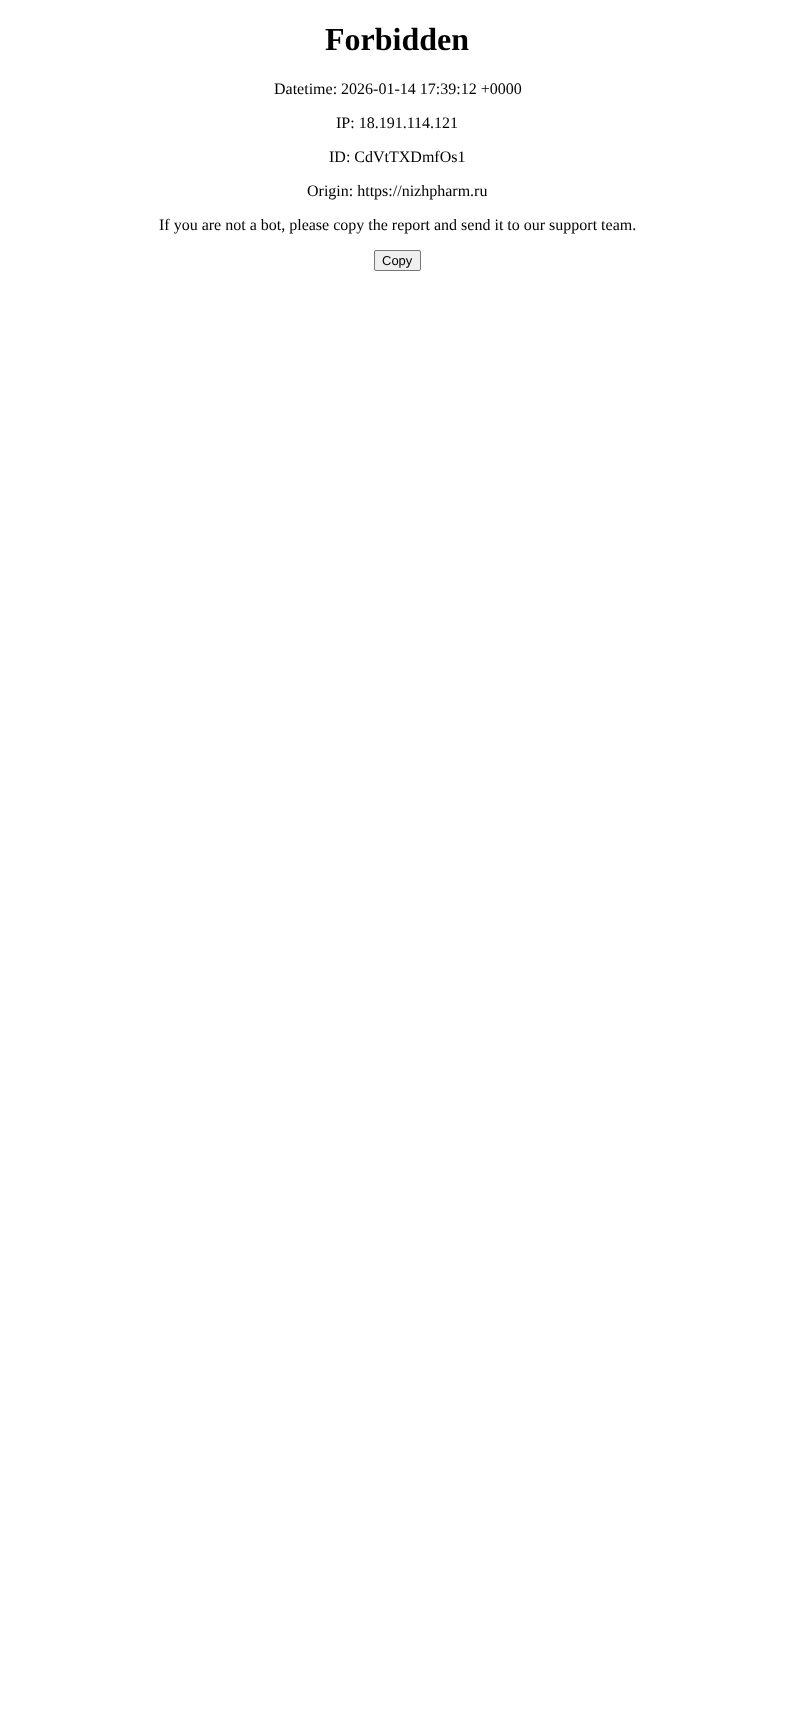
<!DOCTYPE html>
<meta charset="utf-8">
<style>body { margin: 0 } canvas { display: block }</style>
<canvas id="canvas" width="795" height="1711"></canvas>
<script type="module">
  const canvas = document.getElementById("canvas");
  const g = canvas.getContext("2d");
  g.miterLimit = 4;
  g.fontKerning = "normal";
  function drawText(s, x, y, [font, color]) {
    g.font = font;
    g.fillStyle = color;
    g.fillText(s, x, y);
  }
  function fillBox(x, y, w, h, color) {
    g.fillStyle = color;
    g.fillRect(x, y, w, h);
  }

  const s1 = ["bold 32px Liberation Serif", "#000000"];
  const s2 = ["16px Liberation Serif", "#000000"];
  const s3 = ["13px Liberation Sans", "#000000"];

  fillBox(0, 0, 795, 1711, "#FFFFFF");
  drawText("Forbidden", 325, 50, s1);
  drawText("Datetime: 2026-01-14 17:39:12 +0000", 274, 94, s2);
  drawText("IP: 18.191.114.121", 336, 128, s2);
  drawText("ID: CdVtTXDmfOs1", 329, 162, s2);
  drawText("Origin: https://nizhpharm.ru", 307, 196, s2);
  drawText("If you are not a bot, please copy the report and send it to our support team.", 159, 230, s2);
  g.fillStyle = "#EFEFEF";
  g.beginPath();
  g.roundRect(374.5, 250.5, 46, 20, 1.5);
  g.fill();
  g.strokeStyle = "#767676";
  g.stroke();
  drawText("Copy", 382, 265, s3);
</script>
